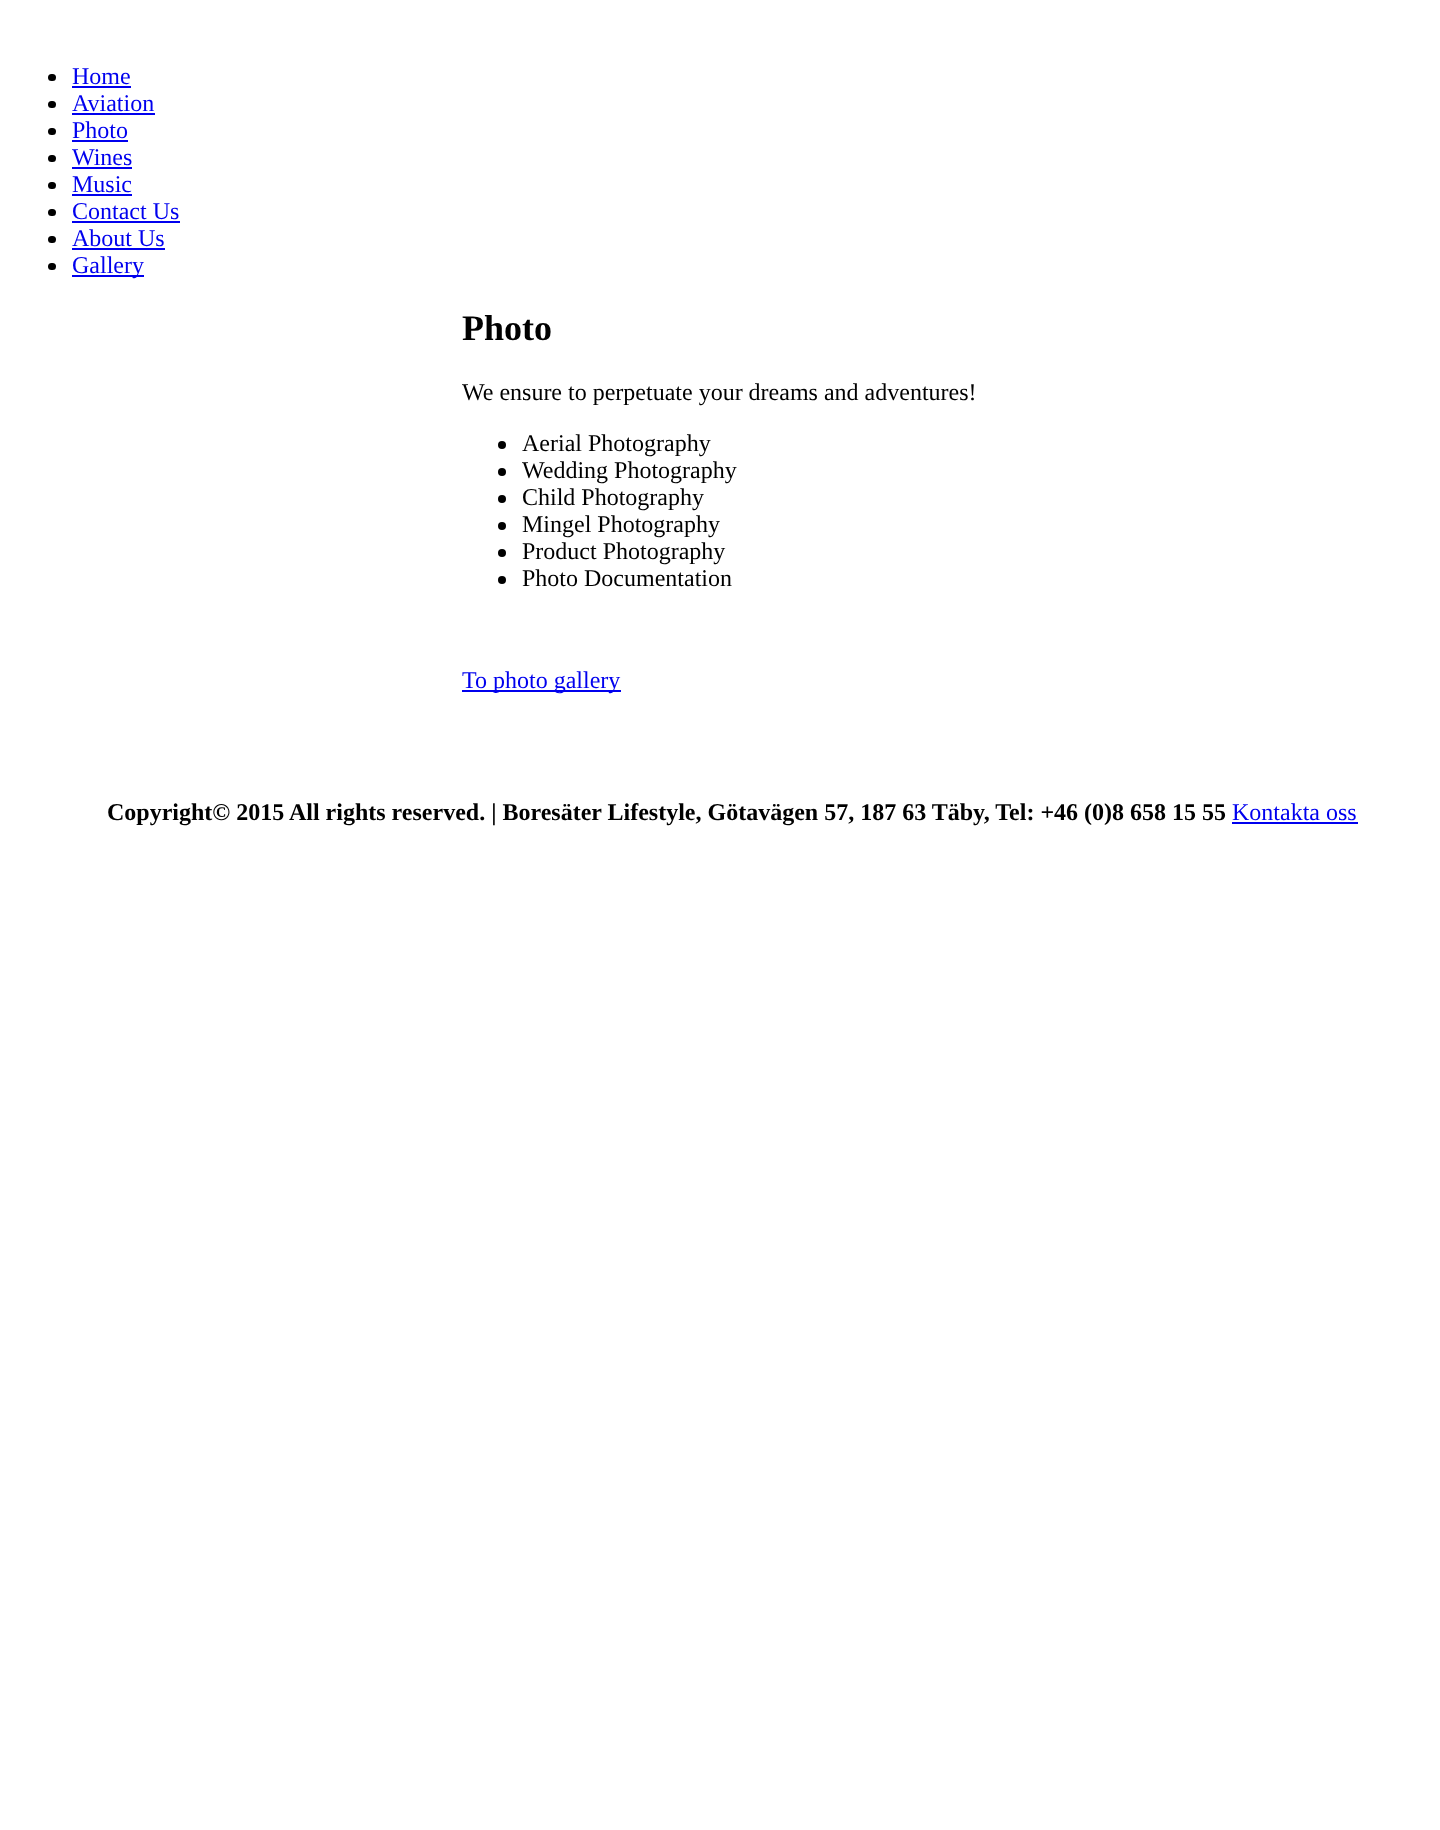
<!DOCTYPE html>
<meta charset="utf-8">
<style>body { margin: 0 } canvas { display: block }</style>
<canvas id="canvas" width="1440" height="1830"></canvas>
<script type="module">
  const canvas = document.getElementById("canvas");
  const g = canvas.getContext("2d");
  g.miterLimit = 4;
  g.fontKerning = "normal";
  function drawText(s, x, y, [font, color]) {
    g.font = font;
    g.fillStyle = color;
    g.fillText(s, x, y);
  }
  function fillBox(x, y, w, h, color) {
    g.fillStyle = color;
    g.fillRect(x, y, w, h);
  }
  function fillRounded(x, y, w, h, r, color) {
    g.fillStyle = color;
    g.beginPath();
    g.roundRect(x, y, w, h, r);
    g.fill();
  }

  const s1 = ["24px Liberation Serif", "#0000EE"];
  const s2 = ["bold 36px Liberation Serif", "#000000"];
  const s3 = ["24px Liberation Serif", "#000000"];
  const s4 = ["bold 24px Liberation Serif", "#000000"];

  fillBox(0, 0, 1440, 1830, "#FFFFFF");
  fillRounded(48, 74, 8, 7, 3.5, "#000000");
  drawText("Home", 72, 84, s1);
  fillBox(72, 86, 59, 2, "#0000EE");
  fillRounded(48, 101, 8, 7, 3.5, "#000000");
  drawText("Aviation", 72, 111, s1);
  fillBox(72, 113, 83, 2, "#0000EE");
  fillRounded(48, 128, 8, 7, 3.5, "#000000");
  drawText("Photo", 72, 138, s1);
  fillBox(72, 140, 56, 2, "#0000EE");
  fillRounded(48, 155, 8, 7, 3.5, "#000000");
  drawText("Wines", 72, 165, s1);
  fillBox(72, 167, 60, 2, "#0000EE");
  fillRounded(48, 182, 8, 7, 3.5, "#000000");
  drawText("Music", 72, 192, s1);
  fillBox(72, 194, 60, 2, "#0000EE");
  fillRounded(48, 209, 8, 7, 3.5, "#000000");
  drawText("Contact Us", 72, 219, s1);
  fillBox(72, 221, 108, 2, "#0000EE");
  fillRounded(48, 236, 8, 7, 3.5, "#000000");
  drawText("About Us", 72, 246, s1);
  fillBox(72, 248, 93, 2, "#0000EE");
  fillRounded(48, 263, 8, 7, 3.5, "#000000");
  fillBox(72, 275, 72, 2, "#0000EE");
  drawText("Gallery", 72, 273, s1);
  drawText("Photo", 462, 340, s2);
  drawText("We ensure to perpetuate your dreams and adventures!", 462, 400, s3);
  g.beginPath();
  g.arc(502, 445, 4, 0, Math.PI * 2);
  g.fill();
  drawText("Aerial Photography", 522, 451, s3);
  g.beginPath();
  g.arc(502, 472, 4, 0, Math.PI * 2);
  g.fill();
  drawText("Wedding Photography", 522, 478, s3);
  g.beginPath();
  g.arc(502, 499, 4, 0, Math.PI * 2);
  g.fill();
  drawText("Child Photography", 522, 505, s3);
  g.beginPath();
  g.arc(502, 526, 4, 0, Math.PI * 2);
  g.fill();
  drawText("Mingel Photography", 522, 532, s3);
  g.beginPath();
  g.arc(502, 553, 4, 0, Math.PI * 2);
  g.fill();
  drawText("Product Photography", 522, 559, s3);
  g.beginPath();
  g.arc(502, 580, 4, 0, Math.PI * 2);
  g.fill();
  drawText("Photo Documentation", 522, 586, s3);
  fillBox(462, 690, 159, 2, "#0000EE");
  drawText("To photo gallery", 462, 688, s1);
  drawText("Copyright© 2015 All rights reserved. | Boresäter Lifestyle, Götavägen 57, 187 63 Täby, Tel: +46 (0)8 658 15 55", 107, 820, s4);
  drawText("Kontakta oss", 1232, 820, s1);
  fillBox(1232, 822, 126, 2, "#0000EE");
</script>
